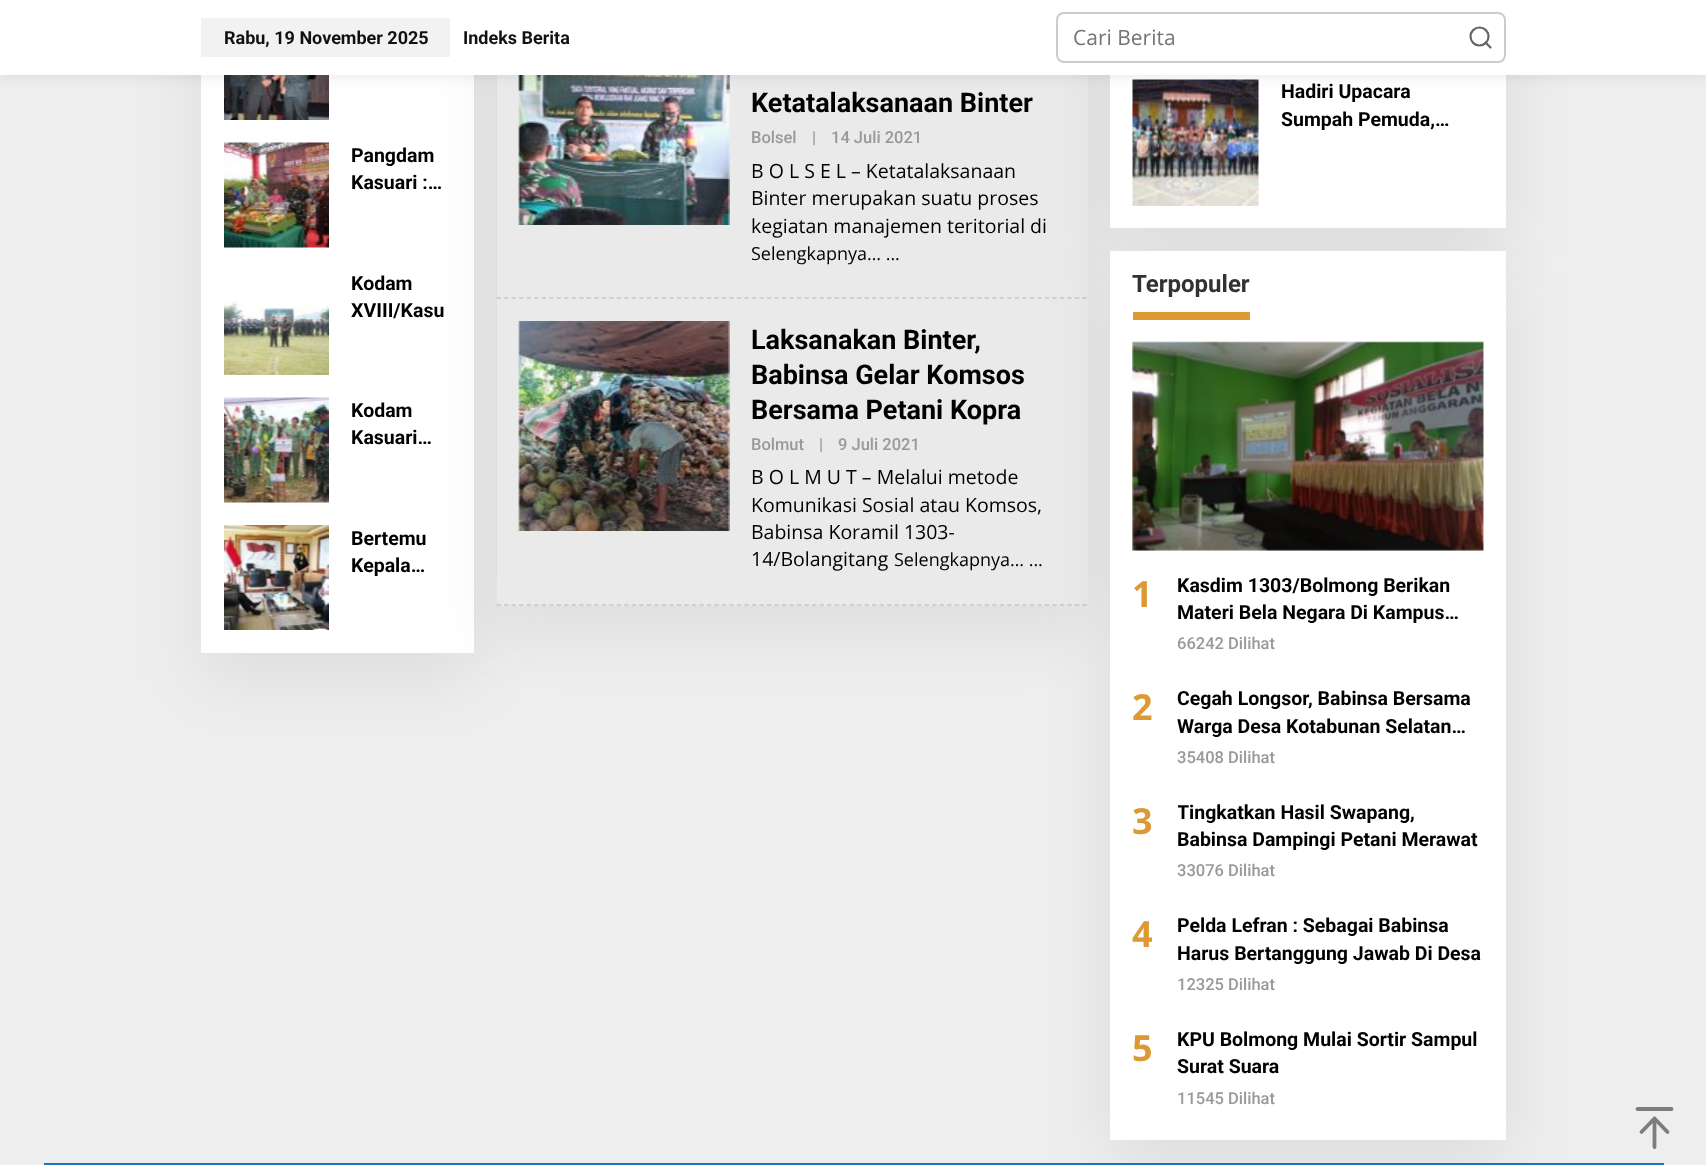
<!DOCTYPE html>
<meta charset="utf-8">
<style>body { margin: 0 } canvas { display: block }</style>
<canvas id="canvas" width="1706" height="1165"></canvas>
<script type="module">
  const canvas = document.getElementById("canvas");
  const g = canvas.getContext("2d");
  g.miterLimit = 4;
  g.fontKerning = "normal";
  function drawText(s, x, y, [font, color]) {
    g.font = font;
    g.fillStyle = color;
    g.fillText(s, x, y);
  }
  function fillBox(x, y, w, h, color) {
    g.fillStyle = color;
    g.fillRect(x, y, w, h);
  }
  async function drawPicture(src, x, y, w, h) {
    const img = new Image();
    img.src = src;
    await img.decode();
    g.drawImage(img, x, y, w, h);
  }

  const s1 = ["bold 18px Roboto", "#111111"];
  const s2 = ["21px Open Sans", "#757575"];
  const s3 = ["bold 19.5px Roboto", "#000000"];
  const s4 = ["bold 27px Roboto", "#000000"];
  const s5 = ["500 16.5px Roboto", "#999999"];
  const s6 = ["19.5px Open Sans", "#000000"];
  const s7 = ["18px Open Sans", "#000000"];
  const s8 = ["bold 24px Roboto", "#323233"];
  const s9 = ["bold 36px Open Sans", "#DD9933"];

  fillBox(0, 0, 1706, 1165, "#EEEEEE");
  g.fillStyle = "rgba(0, 0, 0, 0.07)";
  g.filter = "blur(34px)";
  g.beginPath();
  g.rect(201, -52, 273, 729);
  g.fill();
  g.filter = "none";
  fillBox(201, 75, 273, 578, "#FFFFFF");
  await drawPicture("pic1.png", 224, 75, 105, 45);
  g.fillStyle = "rgba(0, 0, 0, 0.07)";
  g.filter = "blur(34px)";
  g.beginPath();
  g.rect(497, 17, 591, 613);
  g.fill();
  g.filter = "none";
  fillBox(497, 75, 591, 531, "#EAEAEA");
  await drawPicture("pic6.png", 518, 75, 212, 150);
  g.beginPath();
  g.moveTo(496.5, 298);
  g.lineTo(1087.5, 298);
  g.strokeStyle = "#C7C7C7";
  g.lineWidth = 1.5;
  g.setLineDash([4.5, 3.01]);
  g.stroke();
  g.fillStyle = "rgba(0, 0, 0, 0.07)";
  g.filter = "blur(34px)";
  g.beginPath();
  g.rect(1110, -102, 396, 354);
  g.fill();
  g.filter = "none";
  fillBox(1110, 75, 396, 153, "#FFFFFF");
  g.beginPath();
  g.moveTo(496.5, 605);
  g.lineTo(1087.5, 605);
  g.stroke();
  g.fillStyle = "rgba(0, 0, 0, 0.07)";
  g.filter = "blur(34px)";
  g.beginPath();
  g.rect(1110, 275, 396, 889);
  g.fill();
  g.filter = "none";
  await drawPicture("pic8.png", 1132, 79, 127, 127);
  g.fillStyle = "rgba(0, 0, 0, 0.1)";
  g.filter = "blur(7.5px)";
  g.beginPath();
  g.rect(0, 0, 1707, 75);
  g.fill();
  g.filter = "none";
  fillBox(0, 0, 1706, 75, "#FFFFFF");
  fillBox(201, 18, 249, 39, "#F2F2F2");
  drawText("Rabu, 19 November 2025", 224, 44, s1);
  drawText("Indeks Berita", 463, 44, s1);
  g.beginPath();
  g.roundRect(1057, 13, 448, 49, 7);
  g.strokeStyle = "#CCCCCC";
  g.lineWidth = 2;
  g.setLineDash([]);
  g.stroke();
  drawText("Cari Berita", 1073, 45, s2);
  g.beginPath();
  g.arc(1479.5, 36.5, 9, 0, Math.PI * 2);
  g.strokeStyle = "#666666";
  g.lineWidth = 2.2;
  g.stroke();
  g.beginPath();
  g.moveTo(1490.5, 47.5);
  g.lineTo(1485.5, 42.5);
  g.lineCap = "round";
  g.lineJoin = "round";
  g.stroke();
  await drawPicture("pic2.png", 224, 142, 105, 106);
  drawText("Pangdam", 351, 162, s3);
  drawText("Kasuari :…", 351, 189, s3);
  await drawPicture("pic3.png", 224, 300, 105, 75);
  drawText("Kodam", 351, 290, s3);
  drawText("XVIII/Kasu", 351, 317, s3);
  await drawPicture("pic4.png", 224, 397, 105, 106);
  drawText("Kodam", 351, 417, s3);
  drawText("Kasuari…", 351, 444, s3);
  await drawPicture("pic5.png", 224, 525, 105, 105);
  drawText("Bertemu", 351, 545, s3);
  drawText("Kepala…", 351, 572, s3);
  drawText("Ketatalaksanaan Binter", 751, 112, s4);
  drawText("Bolsel", 751, 143, s5);
  drawText("|", 812, 143, s5);
  drawText("14 Juli 2021", 831, 143, s5);
  drawText("B O L S E L – Ketatalaksanaan", 751, 178, s6);
  drawText("Binter merupakan suatu proses", 751, 205, s6);
  drawText("kegiatan manajemen teritorial di", 751, 233, s6);
  drawText("Selengkapnya… ...", 751, 260, s7);
  await drawPicture("pic7.png", 518, 321, 212, 210);
  drawText("Laksanakan Binter,", 751, 349, s4);
  drawText("Babinsa Gelar Komsos", 751, 384, s4);
  drawText("Bersama Petani Kopra", 751, 419, s4);
  drawText("Bolmut", 751, 450, s5);
  drawText("|", 819, 450, s5);
  drawText("9 Juli 2021", 838, 450, s5);
  drawText("B O L M U T – Melalui metode", 751, 484, s6);
  drawText("Komunikasi Sosial atau Komsos,", 751, 512, s6);
  drawText("Babinsa Koramil 1303-", 751, 539, s6);
  drawText("14/Bolangitang", 751, 566, s6);
  drawText("Selengkapnya… ...", 894, 566, s7);
  drawText("Hadiri Upacara", 1281, 98, s3);
  drawText("Sumpah Pemuda,…", 1281, 126, s3);
  fillBox(1110, 251, 396, 889, "#FFFFFF");
  fillBox(1133, 312, 117, 8, "#DD9933");
  drawText("Terpopuler", 1132, 292, s8);
  await drawPicture("pic9.png", 1132, 341, 352, 210);
  drawText("1", 1132, 607, s9);
  drawText("Kasdim 1303/Bolmong Berikan", 1177, 592, s3);
  drawText("Materi Bela Negara Di Kampus…", 1177, 619, s3);
  drawText("66242 Dilihat", 1177, 649, s5);
  drawText("2", 1132, 720, s9);
  drawText("Cegah Longsor, Babinsa Bersama", 1177, 705, s3);
  drawText("Warga Desa Kotabunan Selatan…", 1177, 733, s3);
  drawText("35408 Dilihat", 1177, 763, s5);
  drawText("3", 1132, 834, s9);
  g.save();
  g.beginPath();
  g.rect(1178, 800, 306, 54);
  g.clip();
  drawText("Tingkatkan Hasil Swapang,", 1177, 819, s3);
  g.restore();
  drawText("Babinsa Dampingi Petani Merawat", 1177, 846, s3);
  drawText("33076 Dilihat", 1177, 876, s5);
  drawText("4", 1132, 947, s9);
  drawText("Pelda Lefran : Sebagai Babinsa", 1177, 932, s3);
  drawText("Harus Bertanggung Jawab Di Desa", 1177, 960, s3);
  drawText("12325 Dilihat", 1177, 990, s5);
  drawText("5", 1132, 1061, s9);
  drawText("KPU Bolmong Mulai Sortir Sampul", 1177, 1046, s3);
  drawText("Surat Suara", 1177, 1073, s3);
  drawText("11545 Dilihat", 1177, 1104, s5);
  g.beginPath();
  g.moveTo(1654.5, 1147);
  g.lineTo(1654.5, 1118.5);
  g.moveTo(1641.5, 1132);
  g.lineTo(1654.5, 1118.5);
  g.lineTo(1667.5, 1132);
  g.moveTo(1637.5, 1109);
  g.lineTo(1671.5, 1109);
  g.strokeStyle = "#7D7D7E";
  g.lineWidth = 3.8;
  g.stroke();
  fillBox(44, 1163, 1620, 2, "#1E73BE");
</script>
